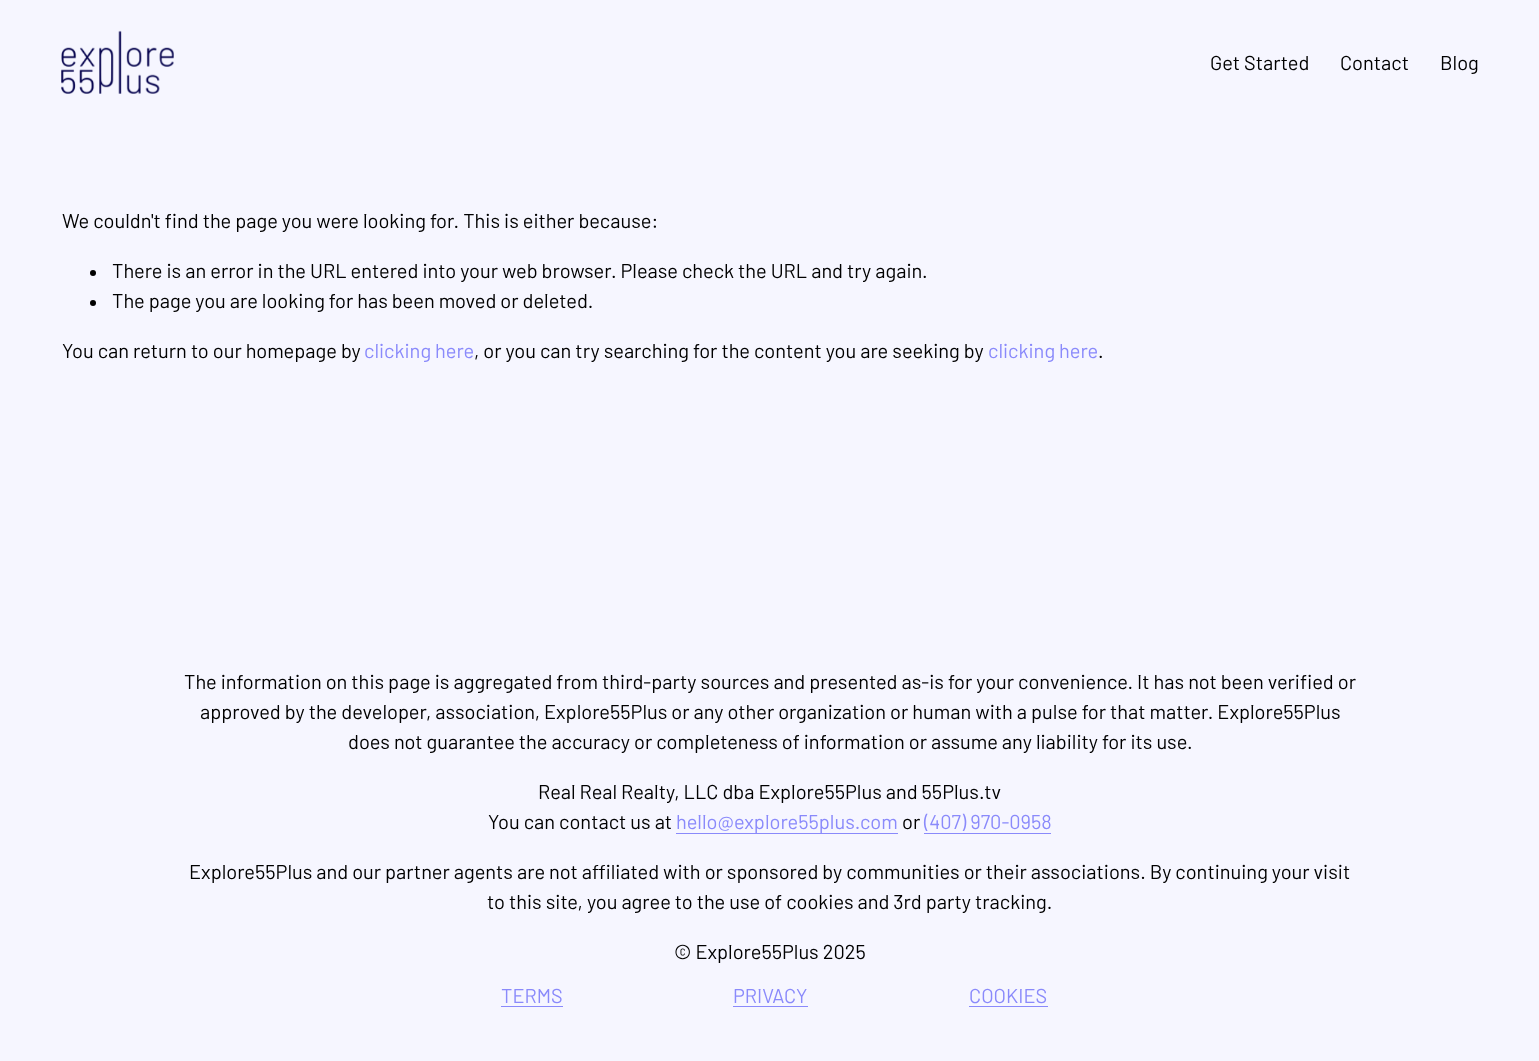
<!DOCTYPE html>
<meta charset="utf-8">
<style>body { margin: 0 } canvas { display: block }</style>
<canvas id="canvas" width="1539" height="1061"></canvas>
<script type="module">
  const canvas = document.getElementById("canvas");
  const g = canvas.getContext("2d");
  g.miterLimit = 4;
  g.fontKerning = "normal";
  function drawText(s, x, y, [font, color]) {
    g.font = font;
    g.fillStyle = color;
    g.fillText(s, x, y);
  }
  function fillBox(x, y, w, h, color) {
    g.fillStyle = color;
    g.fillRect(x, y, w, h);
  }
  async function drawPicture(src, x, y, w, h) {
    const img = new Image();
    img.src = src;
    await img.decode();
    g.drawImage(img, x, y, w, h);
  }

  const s1 = ["20px Barlow", "#000000"];
  const s2 = ["20px Barlow", "#8A8AFB"];

  fillBox(0, 0, 1539, 1061, "#F6F6FF");
  await drawPicture("pic1.png", 61, 30, 113, 64);
  drawText("Get Started", 1210, 70, s1);
  drawText("Contact", 1340, 70, s1);
  drawText("Blog", 1440, 70, s1);
  drawText("We couldn't find the page you were looking for. This is either because:", 62, 228, s1);
  g.beginPath();
  g.arc(93, 273, 3, 0, Math.PI * 2);
  g.fill();
  drawText("There is an error in the URL entered into your web browser. Please check the URL and try again.", 112, 278, s1);
  g.beginPath();
  g.arc(93, 303, 3, 0, Math.PI * 2);
  g.fill();
  drawText("The page you are looking for has been moved or deleted.", 112, 308, s1);
  drawText("You can return to our homepage by", 62, 358, s1);
  drawText("clicking here", 364, 358, s2);
  drawText(", or you can try searching for the content you are seeking by", 474, 358, s1);
  drawText("clicking here", 988, 358, s2);
  drawText(".", 1098, 358, s1);
  drawText("The information on this page is aggregated from third-party sources and presented as-is for your convenience. It has not been verified or", 184, 689, s1);
  drawText("approved by the developer, association, Explore55Plus or any other organization or human with a pulse for that matter. Explore55Plus", 200, 719, s1);
  drawText("does not guarantee the accuracy or completeness of information or assume any liability for its use.", 348, 749, s1);
  drawText("Real Real Realty, LLC dba Explore55Plus and 55Plus.tv", 538, 799, s1);
  drawText("You can contact us at", 488, 829, s1);
  drawText("hello@explore55plus.com", 676, 829, s2);
  fillBox(676, 833, 222, 1, "#8A8AFB");
  drawText("or", 902, 829, s1);
  drawText("(407) 970-0958", 924, 829, s2);
  fillBox(924, 833, 127, 1, "#8A8AFB");
  drawText("Explore55Plus and our partner agents are not affiliated with or sponsored by communities or their associations. By continuing your visit", 189, 879, s1);
  drawText("to this site, you agree to the use of cookies and 3rd party tracking.", 487, 909, s1);
  drawText("© Explore55Plus 2025", 674, 959, s1);
  drawText("TERMS", 501, 1003, s2);
  fillBox(501, 1006, 62, 1, "#8A8AFB");
  drawText("PRIVACY", 733, 1003, s2);
  fillBox(733, 1006, 75, 1, "#8A8AFB");
  drawText("COOKIES", 969, 1003, s2);
  fillBox(969, 1006, 79, 1, "#8A8AFB");
</script>
